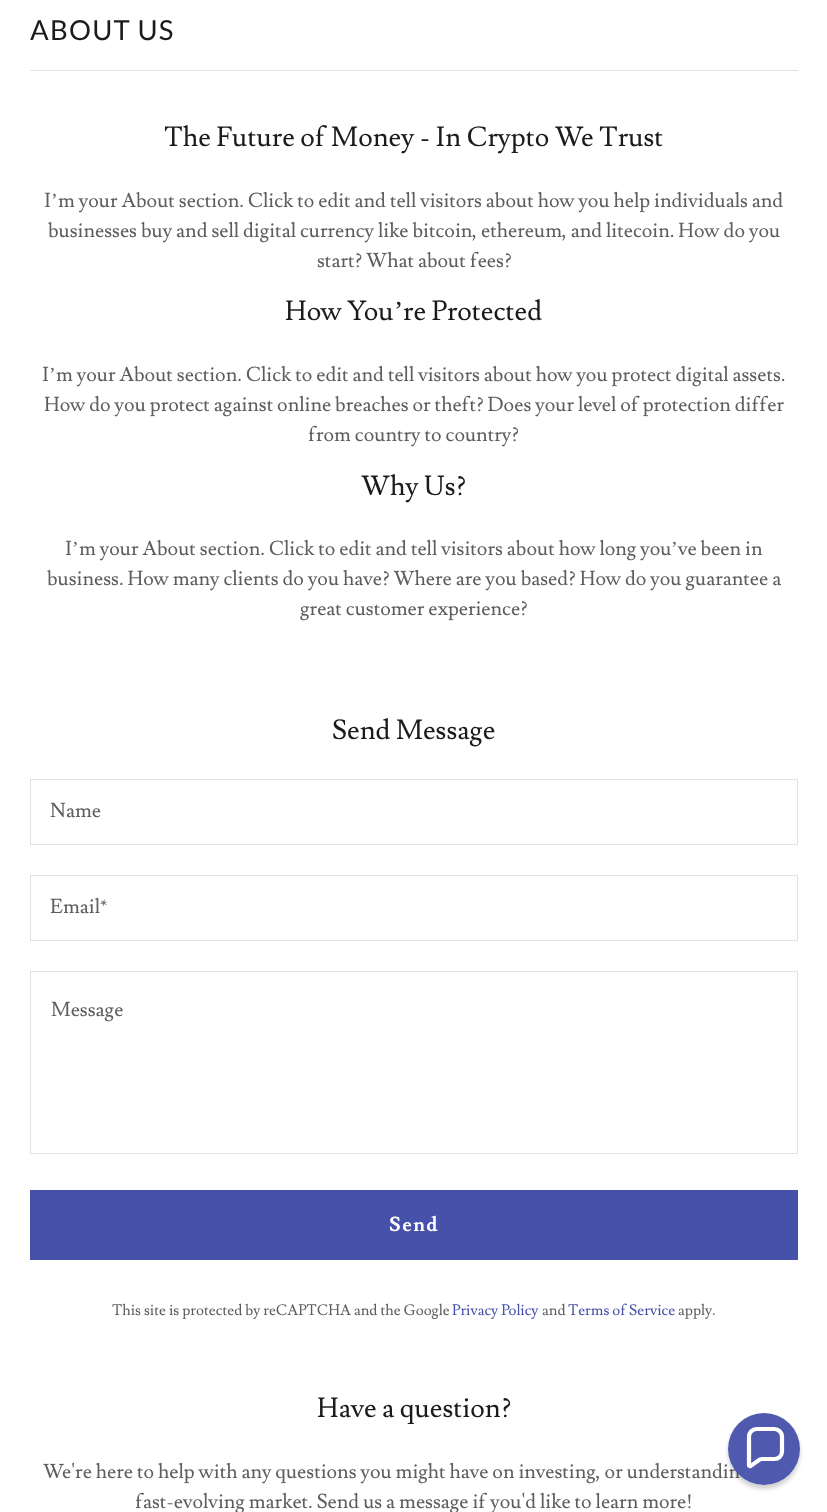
<!DOCTYPE html>
<meta charset="utf-8">
<style>body { margin: 0 } canvas { display: block }</style>
<canvas id="canvas" width="827" height="1512"></canvas>
<script type="module">
  const canvas = document.getElementById("canvas");
  const g = canvas.getContext("2d");
  g.miterLimit = 4;
  g.fontKerning = "normal";
  function drawText(s, x, y, [font, color]) {
    g.font = font;
    g.fillStyle = color;
    g.fillText(s, x, y);
  }
  function fillBox(x, y, w, h, color) {
    g.fillStyle = color;
    g.fillRect(x, y, w, h);
  }

  const s1 = ["27.5px Lato", "#1B1B1B"];
  const s2 = ["27.5px Lusitana", "#1B1B1B"];
  const s3 = ["20px Lusitana", "#5E5E5E"];
  const s4 = ["20px Liberation Serif", "#5E5E5E"];
  const s5 = ["27.5px Liberation Serif", "#1B1B1B"];
  const s6 = ["bold 20px Lusitana", "#FFFFFF"];
  const s7 = ["15px Lusitana", "#5E5E5E"];
  const s8 = ["15px Lusitana", "#4651AA"];

  fillBox(0, 0, 827, 1512, "#FFFFFF");
  g.letterSpacing = "1.25px";
  drawText("ABOUT US", 30, 40, s1);
  fillBox(30, 70, 768, 1, "#E2E2E2");
  g.letterSpacing = "0px";
  drawText("The Future of Money - In Crypto We Trust", 164, 146, s2);
  drawText("I", 44, 207, s3);
  drawText("’", 51, 207, s4);
  drawText("m your About section. Click to edit and tell visitors about how you help individuals and", 58, 207, s3);
  drawText("businesses buy and sell digital currency like bitcoin, ethereum, and litecoin. How do you", 48, 237, s3);
  drawText("start? What about fees?", 317, 267, s3);
  drawText("How You", 285, 320, s2);
  drawText("’", 394, 320, s5);
  drawText("re Protected", 403, 320, s2);
  drawText("I", 42, 381, s3);
  drawText("’", 49, 381, s4);
  drawText("m your About section. Click to edit and tell visitors about how you protect digital assets.", 56, 381, s3);
  drawText("How do you protect against online breaches or theft? Does your level of protection differ", 44, 411, s3);
  drawText("from country to country?", 308, 441, s3);
  drawText("Why Us?", 361, 495, s2);
  drawText("I", 65, 555, s3);
  drawText("’", 72, 555, s4);
  drawText("m your About section. Click to edit and tell visitors about how long you", 79, 555, s3);
  drawText("’", 671, 555, s4);
  drawText("ve been in", 678, 555, s3);
  drawText("business. How many clients do you have? Where are you based? How do you guarantee a", 47, 585, s3);
  drawText("great customer experience?", 300, 615, s3);
  drawText("Send Message", 332, 739, s2);
  g.strokeStyle = "#E2E2E2";
  g.strokeRect(30.5, 779.5, 767, 65);
  drawText("Name", 50, 817, s3);
  g.strokeRect(30.5, 875.5, 767, 65);
  drawText("Email*", 50, 913, s3);
  g.strokeRect(30.5, 971.5, 767, 182);
  drawText("Message", 51, 1016, s3);
  fillBox(30, 1190, 768, 70, "#4651AA");
  g.letterSpacing = "1.5px";
  drawText("Send", 389, 1231, s6);
  g.letterSpacing = "0px";
  drawText("This site is protected by reCAPTCHA and the Google", 112, 1315, s7);
  drawText("Privacy Policy", 452, 1315, s8);
  drawText("and", 542, 1315, s7);
  drawText("Terms of Service", 568, 1315, s8);
  drawText("apply.", 678, 1315, s7);
  drawText("Have a question?", 317, 1417, s2);
  drawText("We're here to help with any questions you might have on investing, or understandin", 43, 1478, s3);
  drawText("fast-evolving market. Send us a message if you'd like to learn more!", 135, 1508, s3);
  g.save();
  g.beginPath();
  g.moveTo(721, 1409);
  g.lineTo(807, 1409);
  g.lineTo(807, 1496);
  g.lineTo(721, 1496);
  g.closePath();
  g.moveTo(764, 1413);
  g.bezierCurveTo(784, 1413, 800, 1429, 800, 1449);
  g.bezierCurveTo(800, 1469, 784, 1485, 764, 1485);
  g.bezierCurveTo(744, 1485, 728, 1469, 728, 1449);
  g.bezierCurveTo(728, 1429, 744, 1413, 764, 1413);
  g.closePath();
  g.clip("evenodd");
  g.fillStyle = "rgba(0, 0, 0, 0.19)";
  g.filter = "blur(2px)";
  g.beginPath();
  g.roundRect(728, 1416, 72, 73, 36);
  g.fill();
  g.filter = "none";
  g.restore();
  g.fillStyle = "rgba(70, 81, 170, 0.95)";
  g.beginPath();
  g.arc(764, 1449, 36, 0, Math.PI * 2);
  g.fill();
  g.beginPath();
  g.moveTo(774.5, 1429);
  g.lineTo(756.5, 1429);
  g.bezierCurveTo(752.5, 1429, 749, 1432.5, 749, 1436.5);
  g.lineTo(749, 1465.5);
  g.bezierCurveTo(749, 1466, 750, 1466.5, 750.5, 1466);
  g.lineTo(758.5, 1460.5);
  g.bezierCurveTo(759.5, 1459.5, 761, 1459, 762, 1459);
  g.lineTo(774.5, 1459);
  g.bezierCurveTo(778.5, 1459, 782, 1456, 782, 1451.5);
  g.lineTo(782, 1436.5);
  g.bezierCurveTo(782, 1432.5, 778.5, 1429, 774.5, 1429);
  g.closePath();
  g.strokeStyle = "#FFFFFF";
  g.lineWidth = 4.2;
  g.stroke();
</script>
